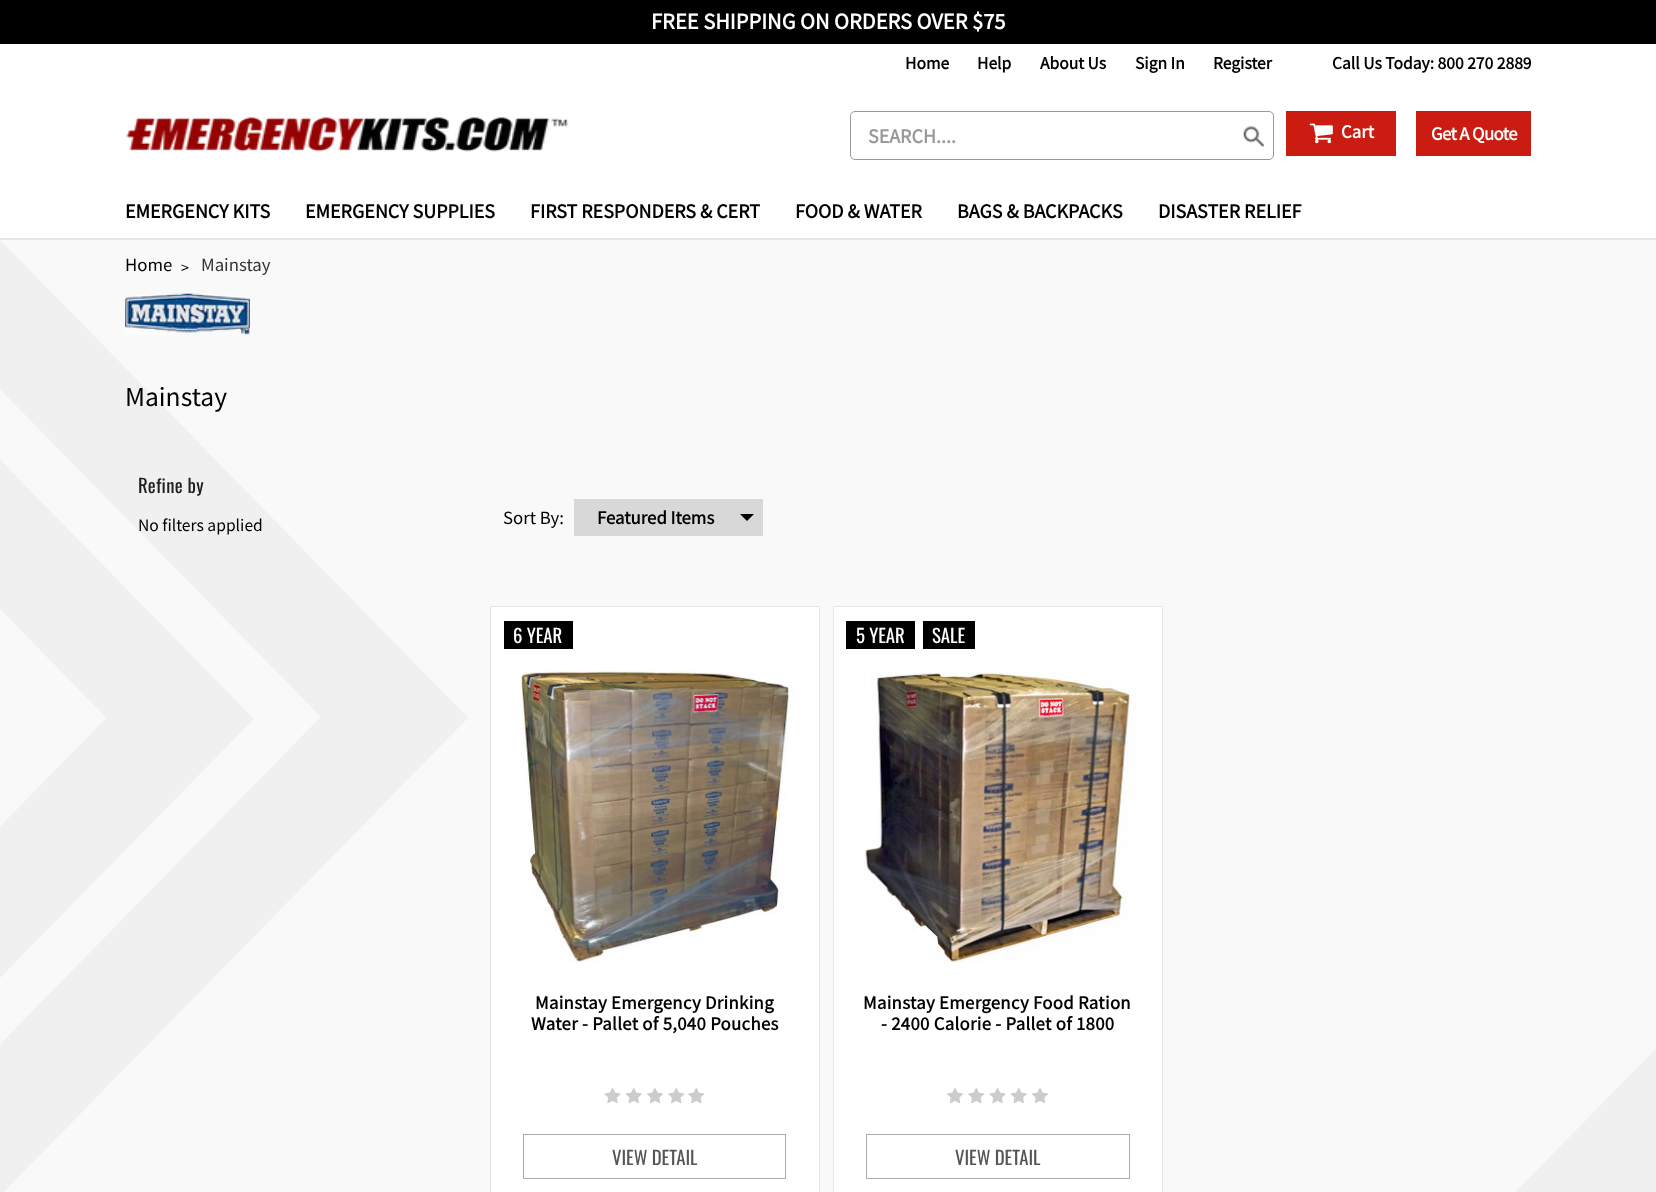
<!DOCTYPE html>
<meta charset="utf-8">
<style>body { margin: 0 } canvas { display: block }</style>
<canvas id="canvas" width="1656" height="1192"></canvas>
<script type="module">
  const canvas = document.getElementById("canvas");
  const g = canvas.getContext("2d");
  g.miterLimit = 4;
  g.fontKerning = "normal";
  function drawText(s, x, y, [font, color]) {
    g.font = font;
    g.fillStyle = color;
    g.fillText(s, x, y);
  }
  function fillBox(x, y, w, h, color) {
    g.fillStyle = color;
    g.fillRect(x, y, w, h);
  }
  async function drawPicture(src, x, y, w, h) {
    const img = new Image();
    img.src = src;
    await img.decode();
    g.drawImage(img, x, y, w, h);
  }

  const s1 = ["bold 22.5px Source Sans Pro", "#FFFFFF"];
  const s2 = ["bold 17.5px Source Sans Pro", "#000000"];
  const s3 = ["bold 20px Source Sans Pro", "#999999"];
  const s4 = ["bold 18.75px Source Sans Pro", "#FFFFFF"];
  const s5 = ["bold 20px Source Sans Pro", "#000000"];
  const s6 = ["18.75px Source Sans Pro", "#000000"];
  const s7 = ["16px Source Sans Pro", "#000000"];
  const s8 = ["18.75px Source Sans Pro", "#333333"];
  const s9 = ["27.5px Source Sans Pro", "#000000"];
  const s10 = ["18.75px Oswald", "#212121"];
  const s11 = ["17.5px Source Sans Pro", "#000000"];
  const s12 = ["bold 18.75px Source Sans Pro", "#000000"];
  const s13 = ["18.75px Oswald", "#FFFFFF"];
  const s14 = ["18.75px Oswald", "#555555"];

  fillBox(0, 0, 1656, 1192, "#FFFFFF");
  fillBox(0, 239, 1656, 1, "#E5E5E5");
  fillBox(0, 0, 1656, 44, "#000000");
  drawText("FREE SHIPPING ON ORDERS OVER $75", 651, 29, s1);
  drawText("Home", 905, 69, s2);
  drawText("Help", 977, 69, s2);
  drawText("About Us", 1040, 69, s2);
  drawText("Sign In", 1135, 69, s2);
  drawText("Register", 1213, 69, s2);
  drawText("Call Us Today: 800 270 2889", 1332, 69, s2);
  await drawPicture("pic1.png", 126, 117, 443, 35);
  await drawPicture("pic2.png", 1243, 126, 21, 21);
  g.beginPath();
  g.roundRect(850.5, 111.5, 423, 48, 4.5);
  g.strokeStyle = "#999999";
  g.stroke();
  drawText("SEARCH....", 868, 143, s3);
  fillBox(1286, 111, 110, 45, "#CA1C10");
  await drawPicture("pic3.png", 1309, 123, 24, 21);
  drawText("Cart", 1341, 138, s4);
  fillBox(1416, 111, 115, 45, "#CA1C10");
  g.letterSpacing = "-0.6px";
  drawText("Get A Quote", 1431, 140, s4);
  fillBox(0, 238, 1656, 1, "#E6E6E6");
  g.letterSpacing = "0px";
  drawText("EMERGENCY KITS", 125, 218, s5);
  drawText("EMERGENCY SUPPLIES", 305, 218, s5);
  drawText("FIRST RESPONDERS & CERT", 530, 218, s5);
  drawText("FOOD & WATER", 795, 218, s5);
  drawText("BAGS & BACKPACKS", 957, 218, s5);
  drawText("DISASTER RELIEF", 1158, 218, s5);
  fillBox(0, 240, 1656, 952, "#F9F9F9");
  await drawPicture("pic4.png", 0, 240, 1656, 952);
  drawText("Home", 125, 271, s6);
  drawText(">", 181, 273, s7);
  drawText("Mainstay", 201, 271, s8);
  await drawPicture("pic5.png", 125, 293, 125, 42);
  drawText("Mainstay", 125, 406, s9);
  g.letterSpacing = "0.3px";
  drawText("Refine by", 138, 493, s10);
  g.letterSpacing = "0px";
  drawText("No filters applied", 138, 531, s11);
  drawText("Sort By:", 503, 524, s6);
  fillBox(574, 499, 189, 37, "#D8D8D8");
  g.fillStyle = "#000000";
  g.beginPath();
  g.moveTo(754, 514);
  g.lineTo(747, 521);
  g.lineTo(740, 514);
  g.closePath();
  g.fill();
  drawText("Featured Items", 597, 524, s12);
  g.fillStyle = "#FFFFFF";
  g.beginPath();
  g.rect(490.5, 606.5, 329, 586);
  g.fill();
  g.strokeStyle = "#E6E6E6";
  g.stroke();
  fillBox(504, 621, 69, 28, "#000000");
  drawText("6 YEAR", 513, 643, s13);
  await drawPicture("pic6.png", 520, 671, 274, 291);
  g.letterSpacing = "0.3px";
  drawText("Mainstay Emergency Drinking", 535, 1009, s12);
  drawText("Water - Pallet of 5,040 Pouches", 531, 1030, s12);
  await drawPicture("pic7.png", 604, 1088, 17, 16);
  await drawPicture("pic8.png", 625, 1088, 17, 16);
  await drawPicture("pic9.png", 647, 1088, 16, 16);
  await drawPicture("pic10.png", 668, 1088, 17, 16);
  await drawPicture("pic10.png", 688, 1088, 17, 16);
  g.strokeStyle = "#AAAAAA";
  g.strokeRect(523.5, 1134.5, 262, 44);
  g.letterSpacing = "0px";
  drawText("VIEW DETAIL", 612, 1165, s14);
  g.fillStyle = "#FFFFFF";
  g.beginPath();
  g.rect(833.5, 606.5, 329, 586);
  g.fill();
  g.strokeStyle = "#E6E6E6";
  g.stroke();
  fillBox(846, 621, 69, 28, "#000000");
  drawText("5 YEAR", 856, 643, s13);
  fillBox(923, 621, 52, 28, "#000000");
  drawText("SALE", 932, 643, s13);
  await drawPicture("pic11.png", 863, 672, 273, 291);
  g.letterSpacing = "0.3px";
  drawText("Mainstay Emergency Food Ration", 863, 1009, s12);
  drawText("- 2400 Calorie - Pallet of 1800", 881, 1030, s12);
  await drawPicture("pic9.png", 947, 1088, 16, 16);
  await drawPicture("pic10.png", 968, 1088, 17, 16);
  await drawPicture("pic7.png", 989, 1088, 17, 16);
  await drawPicture("pic8.png", 1010, 1088, 17, 16);
  await drawPicture("pic9.png", 1032, 1088, 16, 16);
  g.strokeStyle = "#AAAAAA";
  g.strokeRect(866.5, 1134.5, 263, 44);
  g.letterSpacing = "0px";
  drawText("VIEW DETAIL", 955, 1165, s14);
</script>
